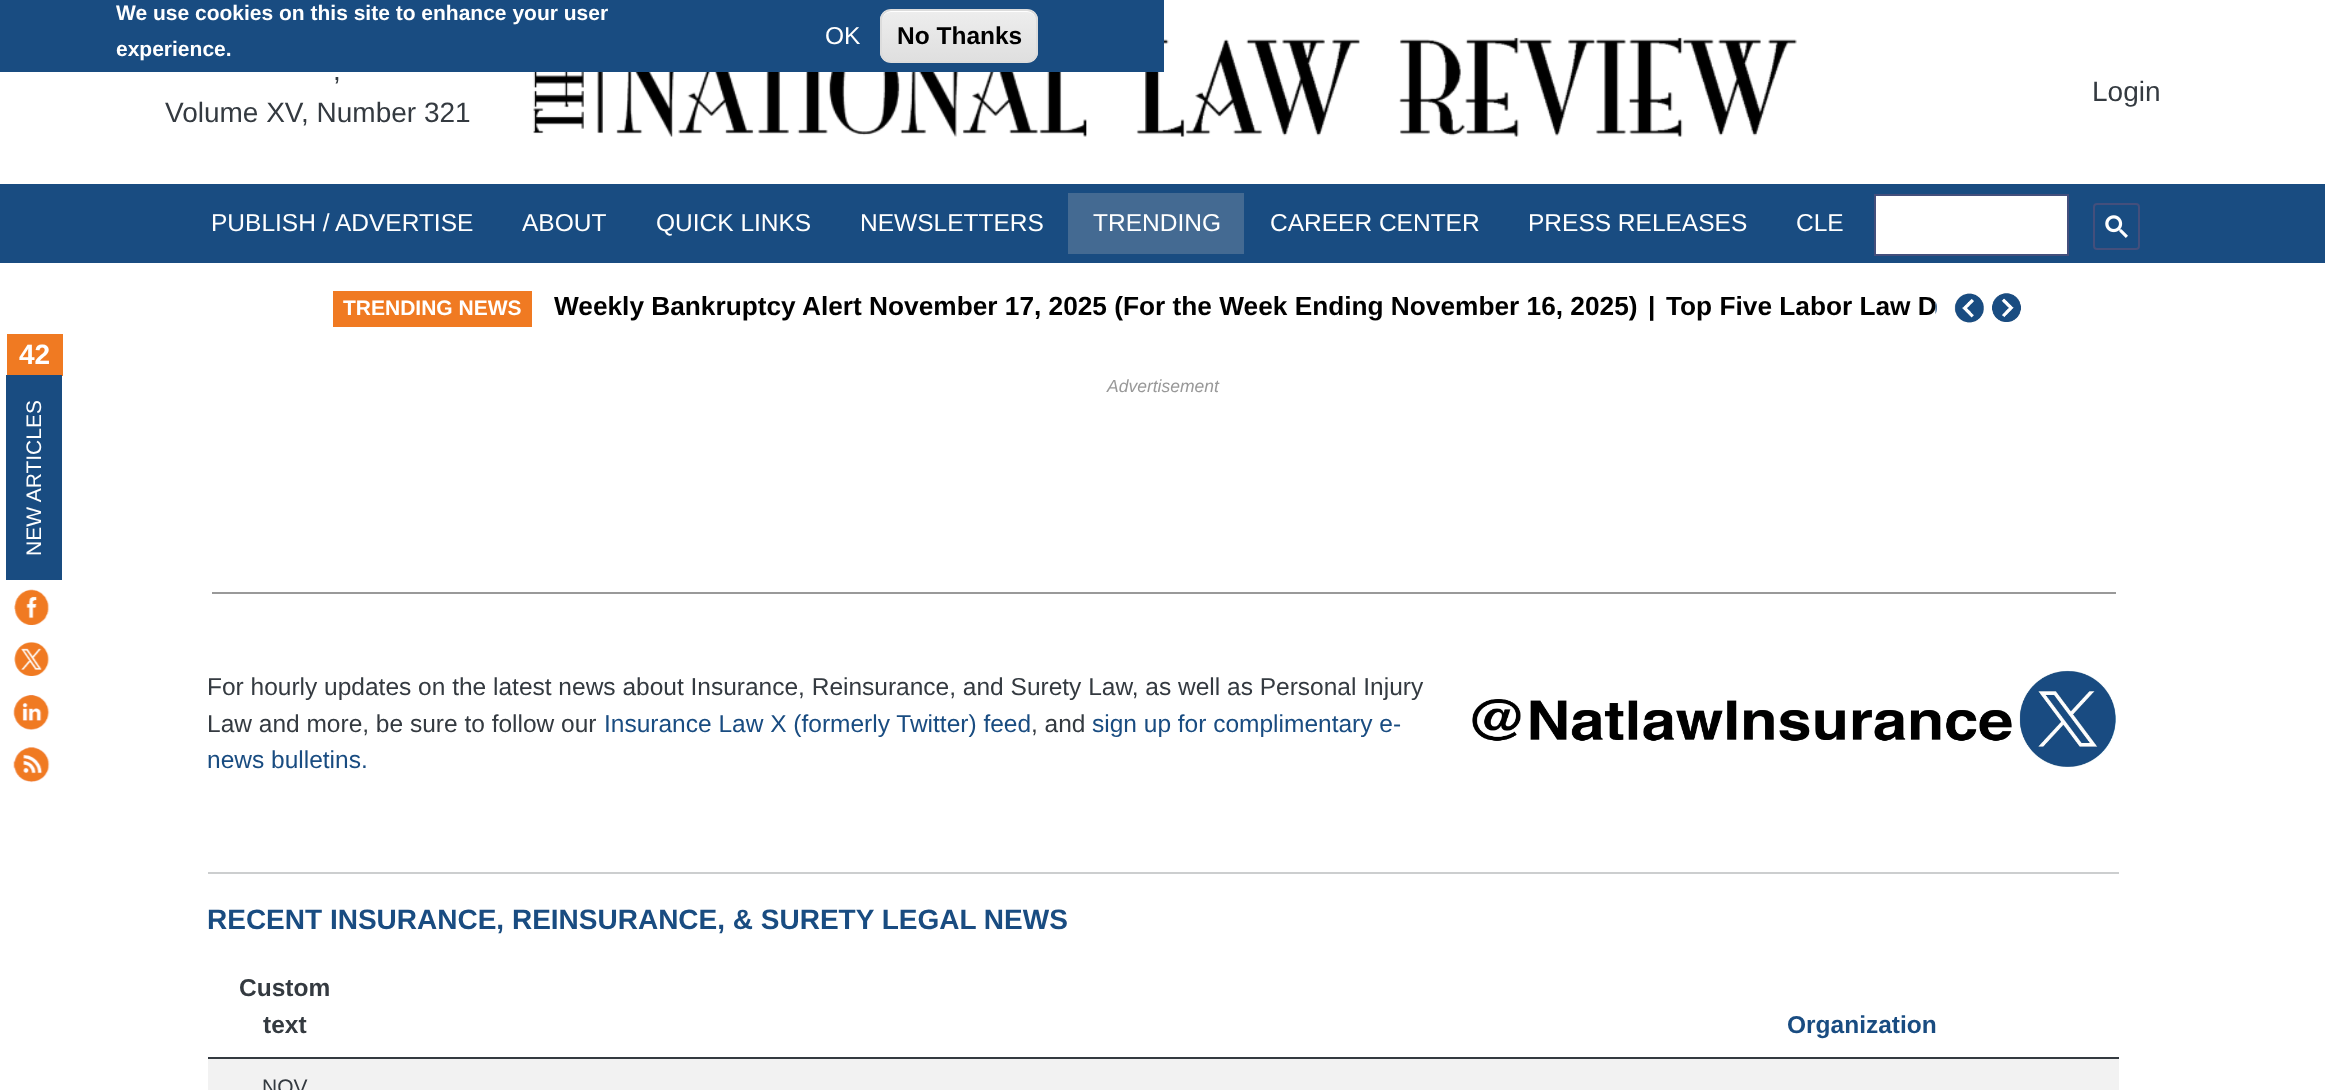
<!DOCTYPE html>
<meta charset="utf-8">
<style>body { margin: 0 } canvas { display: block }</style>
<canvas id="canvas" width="2325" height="1090"></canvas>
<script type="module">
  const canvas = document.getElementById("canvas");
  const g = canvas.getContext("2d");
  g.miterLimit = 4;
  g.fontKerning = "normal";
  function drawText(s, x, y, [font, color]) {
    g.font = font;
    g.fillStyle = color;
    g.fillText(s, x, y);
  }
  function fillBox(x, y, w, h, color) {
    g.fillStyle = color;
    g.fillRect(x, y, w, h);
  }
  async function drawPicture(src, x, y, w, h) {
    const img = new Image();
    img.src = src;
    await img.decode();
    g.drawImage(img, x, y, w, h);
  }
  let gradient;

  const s1 = ["bold 21px Liberation Sans", "#FFFFFF"];
  const s2 = ["24.5px Liberation Sans", "#FFFFFF"];
  const s3 = ["bold 24.5px Liberation Sans", "#000000"];
  const s4 = ["28px Liberation Sans", "#343A40"];
  const s5 = ["bold 26.25px Liberation Sans", "#000000"];
  const s6 = ["bold 28px Liberation Sans", "#FFFFFF"];
  const s7 = ["italic 17.5px Liberation Sans", "#999999"];
  const s8 = ["24.5px Liberation Sans", "#343A40"];
  const s9 = ["24.5px Liberation Sans", "#194C81"];
  const s10 = ["bold 28px Liberation Sans", "#194C81"];
  const s11 = ["bold 24.5px Liberation Sans", "#343A40"];
  const s12 = ["bold 24.5px Liberation Sans", "#194C81"];
  const s13 = ["21px Liberation Sans", "#343A40"];

  fillBox(0, 0, 2325, 1090, "#FFFFFF");
  await drawPicture("pic1.png", 533, 37, 1264, 100);
  fillBox(0, 0, 1164, 72, "#194C81");
  drawText("We use cookies on this site to enhance your user", 116, 20, s1);
  drawText("experience.", 116, 56, s1);
  drawText("OK", 825, 44, s2);
  g.save();
  g.beginPath();
  g.roundRect(880, 9, 158, 54, 11);
  g.clip();
  gradient = g.createLinearGradient(959, 10, 959, 61);
  gradient.addColorStop(0.05, "#EDEDED");
  gradient.addColorStop(1, "#DFDFDF");
  g.fillStyle = gradient;
  g.fillRect(880, 11, 158, 50);
  g.restore();
  g.beginPath();
  g.moveTo(891, 12);
  g.lineTo(1027, 12);
  g.bezierCurveTo(1032, 12, 1036, 16, 1036, 21);
  g.bezierCurveTo(1036, 5, 1013, 11, 1004, 11);
  g.lineTo(914, 11);
  g.bezierCurveTo(905, 11, 882, 5, 882, 21);
  g.bezierCurveTo(882, 16, 886, 12, 891, 12);
  g.closePath();
  g.fill();
  g.beginPath();
  g.roundRect(881, 10, 156, 52, 10);
  g.strokeStyle = "#DCDCDC";
  g.lineWidth = 2;
  g.stroke();
  drawText("No Thanks", 897, 44, s3);
  drawText(",", 333, 80, s4);
  drawText("Volume XV, Number 321", 165, 122, s4);
  drawText("Login", 2092, 101, s4);
  fillBox(0, 184, 2325, 79, "#194C81");
  drawText("PUBLISH / ADVERTISE", 211, 231, s2);
  drawText("ABOUT", 522, 231, s2);
  drawText("QUICK LINKS", 656, 231, s2);
  drawText("NEWSLETTERS", 860, 231, s2);
  fillBox(1068, 193, 176, 61, "#446A92");
  drawText("TRENDING", 1093, 231, s2);
  drawText("CAREER CENTER", 1270, 231, s2);
  drawText("PRESS RELEASES", 1528, 231, s2);
  drawText("CLE", 1796, 231, s2);
  g.beginPath();
  g.rect(1875, 195, 193, 60);
  g.fill();
  g.strokeStyle = "#444F7C";
  g.stroke();
  g.beginPath();
  g.roundRect(2094, 204, 45, 45, 3);
  g.stroke();
  await drawPicture("pic2.png", 2105, 215, 23, 23);
  fillBox(333, 291, 199, 36, "#F07A22");
  drawText("TRENDING NEWS", 343, 315, s1);
  drawText("Weekly Bankruptcy Alert November 17, 2025 (For the Week Ending November 16, 2025)", 554, 315, s5);
  drawText("|", 1648, 315, s5);
  drawText("Top Five Labor Law D", 1666, 315, s5);
  await drawPicture("pic3.png", 1935, 293, 49, 30);
  await drawPicture("pic4.png", 1992, 293, 29, 29);
  fillBox(7, 334, 56, 42, "#F07A22");
  drawText("42", 19, 364, s6);
  fillBox(6, 375, 56, 205, "#194C81");
  g.font = "21px Liberation Sans";
  g.fillStyle = "#FFFFFF";
  g.save();
  g.translate(41, 556);
  g.rotate(-90 * Math.PI / 180);
  g.fillText("NEW ARTICLES", 0, 0);
  g.restore();
  await drawPicture("pic5.png", 14, 589, 36, 36);
  await drawPicture("pic6.png", 14, 642, 36, 34);
  await drawPicture("pic7.png", 13, 695, 37, 35);
  await drawPicture("pic8.png", 13, 747, 37, 36);
  fillBox(212, 592, 1904, 2, "#999999");
  drawText("Advertisement", 1107, 392, s7);
  drawText("For hourly updates on the latest news about Insurance, Reinsurance, and Surety Law, as well as Personal Injury", 207, 695, s8);
  await drawPicture("pic9.png", 1472, 670, 644, 97);
  drawText("Law and more, be sure to follow our", 207, 732, s8);
  drawText("Insurance Law X (formerly Twitter) feed", 604, 732, s9);
  drawText(", and", 1031, 732, s8);
  drawText("sign up for complimentary e-", 1092, 732, s9);
  drawText("news bulletins.", 207, 768, s9);
  fillBox(208, 872, 1911, 2, "#CCCECF");
  drawText("RECENT INSURANCE, REINSURANCE, & SURETY LEGAL NEWS", 207, 929, s10);
  drawText("Custom", 239, 996, s11);
  drawText("text", 263, 1033, s11);
  fillBox(208, 1057, 1911, 2, "#343A40");
  drawText("Organization", 1787, 1033, s12);
  fillBox(208, 1059, 1911, 31, "#F2F2F2");
  drawText("NOV", 262, 1094, s13);
</script>
